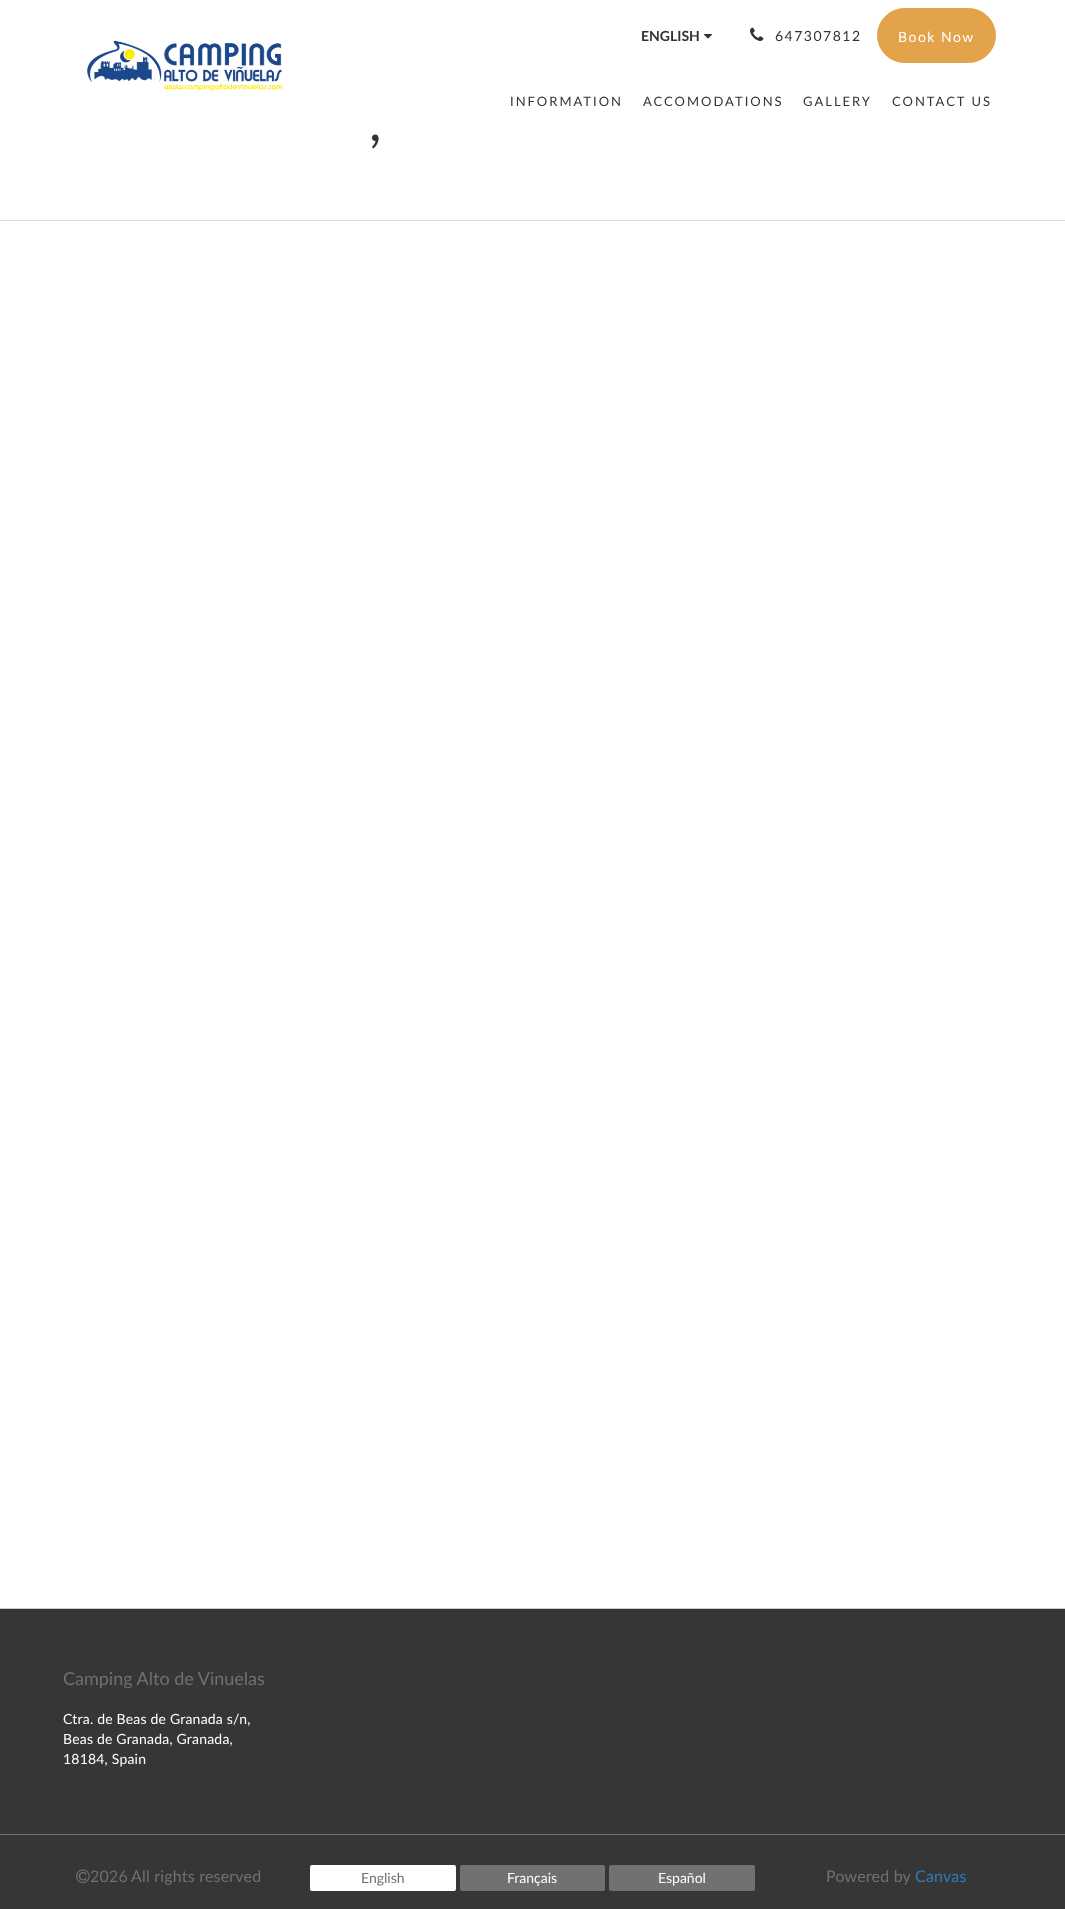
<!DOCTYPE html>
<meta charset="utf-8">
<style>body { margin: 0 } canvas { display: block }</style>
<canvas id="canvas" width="1065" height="1909"></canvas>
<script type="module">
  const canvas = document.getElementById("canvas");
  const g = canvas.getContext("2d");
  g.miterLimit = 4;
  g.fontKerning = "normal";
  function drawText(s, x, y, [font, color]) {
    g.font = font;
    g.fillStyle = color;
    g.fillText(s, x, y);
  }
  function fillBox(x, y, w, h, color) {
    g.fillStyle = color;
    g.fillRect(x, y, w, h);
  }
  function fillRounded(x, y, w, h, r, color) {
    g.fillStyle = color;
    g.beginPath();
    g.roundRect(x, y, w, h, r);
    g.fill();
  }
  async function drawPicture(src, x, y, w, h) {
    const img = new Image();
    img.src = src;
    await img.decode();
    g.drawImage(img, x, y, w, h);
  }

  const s1 = ["bold 14px Lato", "#333333"];
  const s2 = ["14px Lato", "#333333"];
  const s3 = ["14px Lato", "#FFFFFF"];
  const s4 = ["13px Lato", "#333333"];
  const s5 = ["55px Lato", "#333333"];
  const s6 = ["18px Lato", "#707070"];
  const s7 = ["16px Lato", "#707070"];
  const s8 = ["14px Lato", "#707070"];
  const s9 = ["16px Lato", "#337AB7"];

  fillBox(0, 0, 1065, 1909, "#FFFFFF");
  await drawPicture("pic1.png", 87, 40, 196, 51);
  drawText("ENGLISH", 641, 41, s1);
  await drawPicture("pic2.png", 704, 34, 8, 5);
  await drawPicture("pic3.png", 750, 27, 14, 14);
  g.letterSpacing = "1.5px";
  drawText("647307812", 775, 41, s2);
  g.fillStyle = "#E2A34B";
  g.beginPath();
  g.roundRect(877.5, 8.5, 118, 54, 27);
  g.fill();
  g.strokeStyle = "#E2A34B";
  g.stroke();
  drawText("Book Now", 898, 42, s3);
  g.letterSpacing = "2px";
  drawText("INFORMATION", 510, 106, s4);
  drawText("ACCOMODATIONS", 643, 106, s4);
  drawText("GALLERY", 803, 106, s4);
  drawText("CONTACT US", 892, 106, s4);
  fillBox(0, 220, 1065, 1, "#DFDED3");
  g.letterSpacing = "5px";
  drawText(",", 369, 141, s5);
  fillBox(0, 1609, 1065, 225, "#363636");
  fillBox(0, 1608, 1065, 1, "#CCCCCC");
  fillBox(0, 1834, 1065, 1, "#707070");
  g.letterSpacing = "0px";
  drawText("Camping Alto de Vinuelas", 63, 1685, s6);
  g.letterSpacing = "0.2px";
  drawText("Ctra. de Beas de Granada s/n,", 63, 1724, s3);
  drawText("Beas de Granada, Granada,", 63, 1744, s3);
  drawText("18184, Spain", 63, 1764, s3);
  fillBox(0, 1835, 1065, 74, "#363636");
  await drawPicture("pic4.png", 76, 1869, 14, 15);
  drawText("2026", 90, 1882, s7);
  drawText("All rights reserved", 131, 1882, s7);
  fillRounded(310, 1865, 146, 26, 2, "#FFFFFF");
  g.letterSpacing = "0px";
  drawText("English", 361, 1883, s8);
  fillRounded(460, 1865, 145, 26, 2, "#717171");
  drawText("Français", 507, 1883, s3);
  fillRounded(609, 1865, 146, 26, 2, "#717171");
  drawText("Español", 658, 1883, s3);
  g.letterSpacing = "0.2px";
  drawText("Powered by", 826, 1882, s7);
  drawText("Canvas", 915, 1882, s9);
</script>
